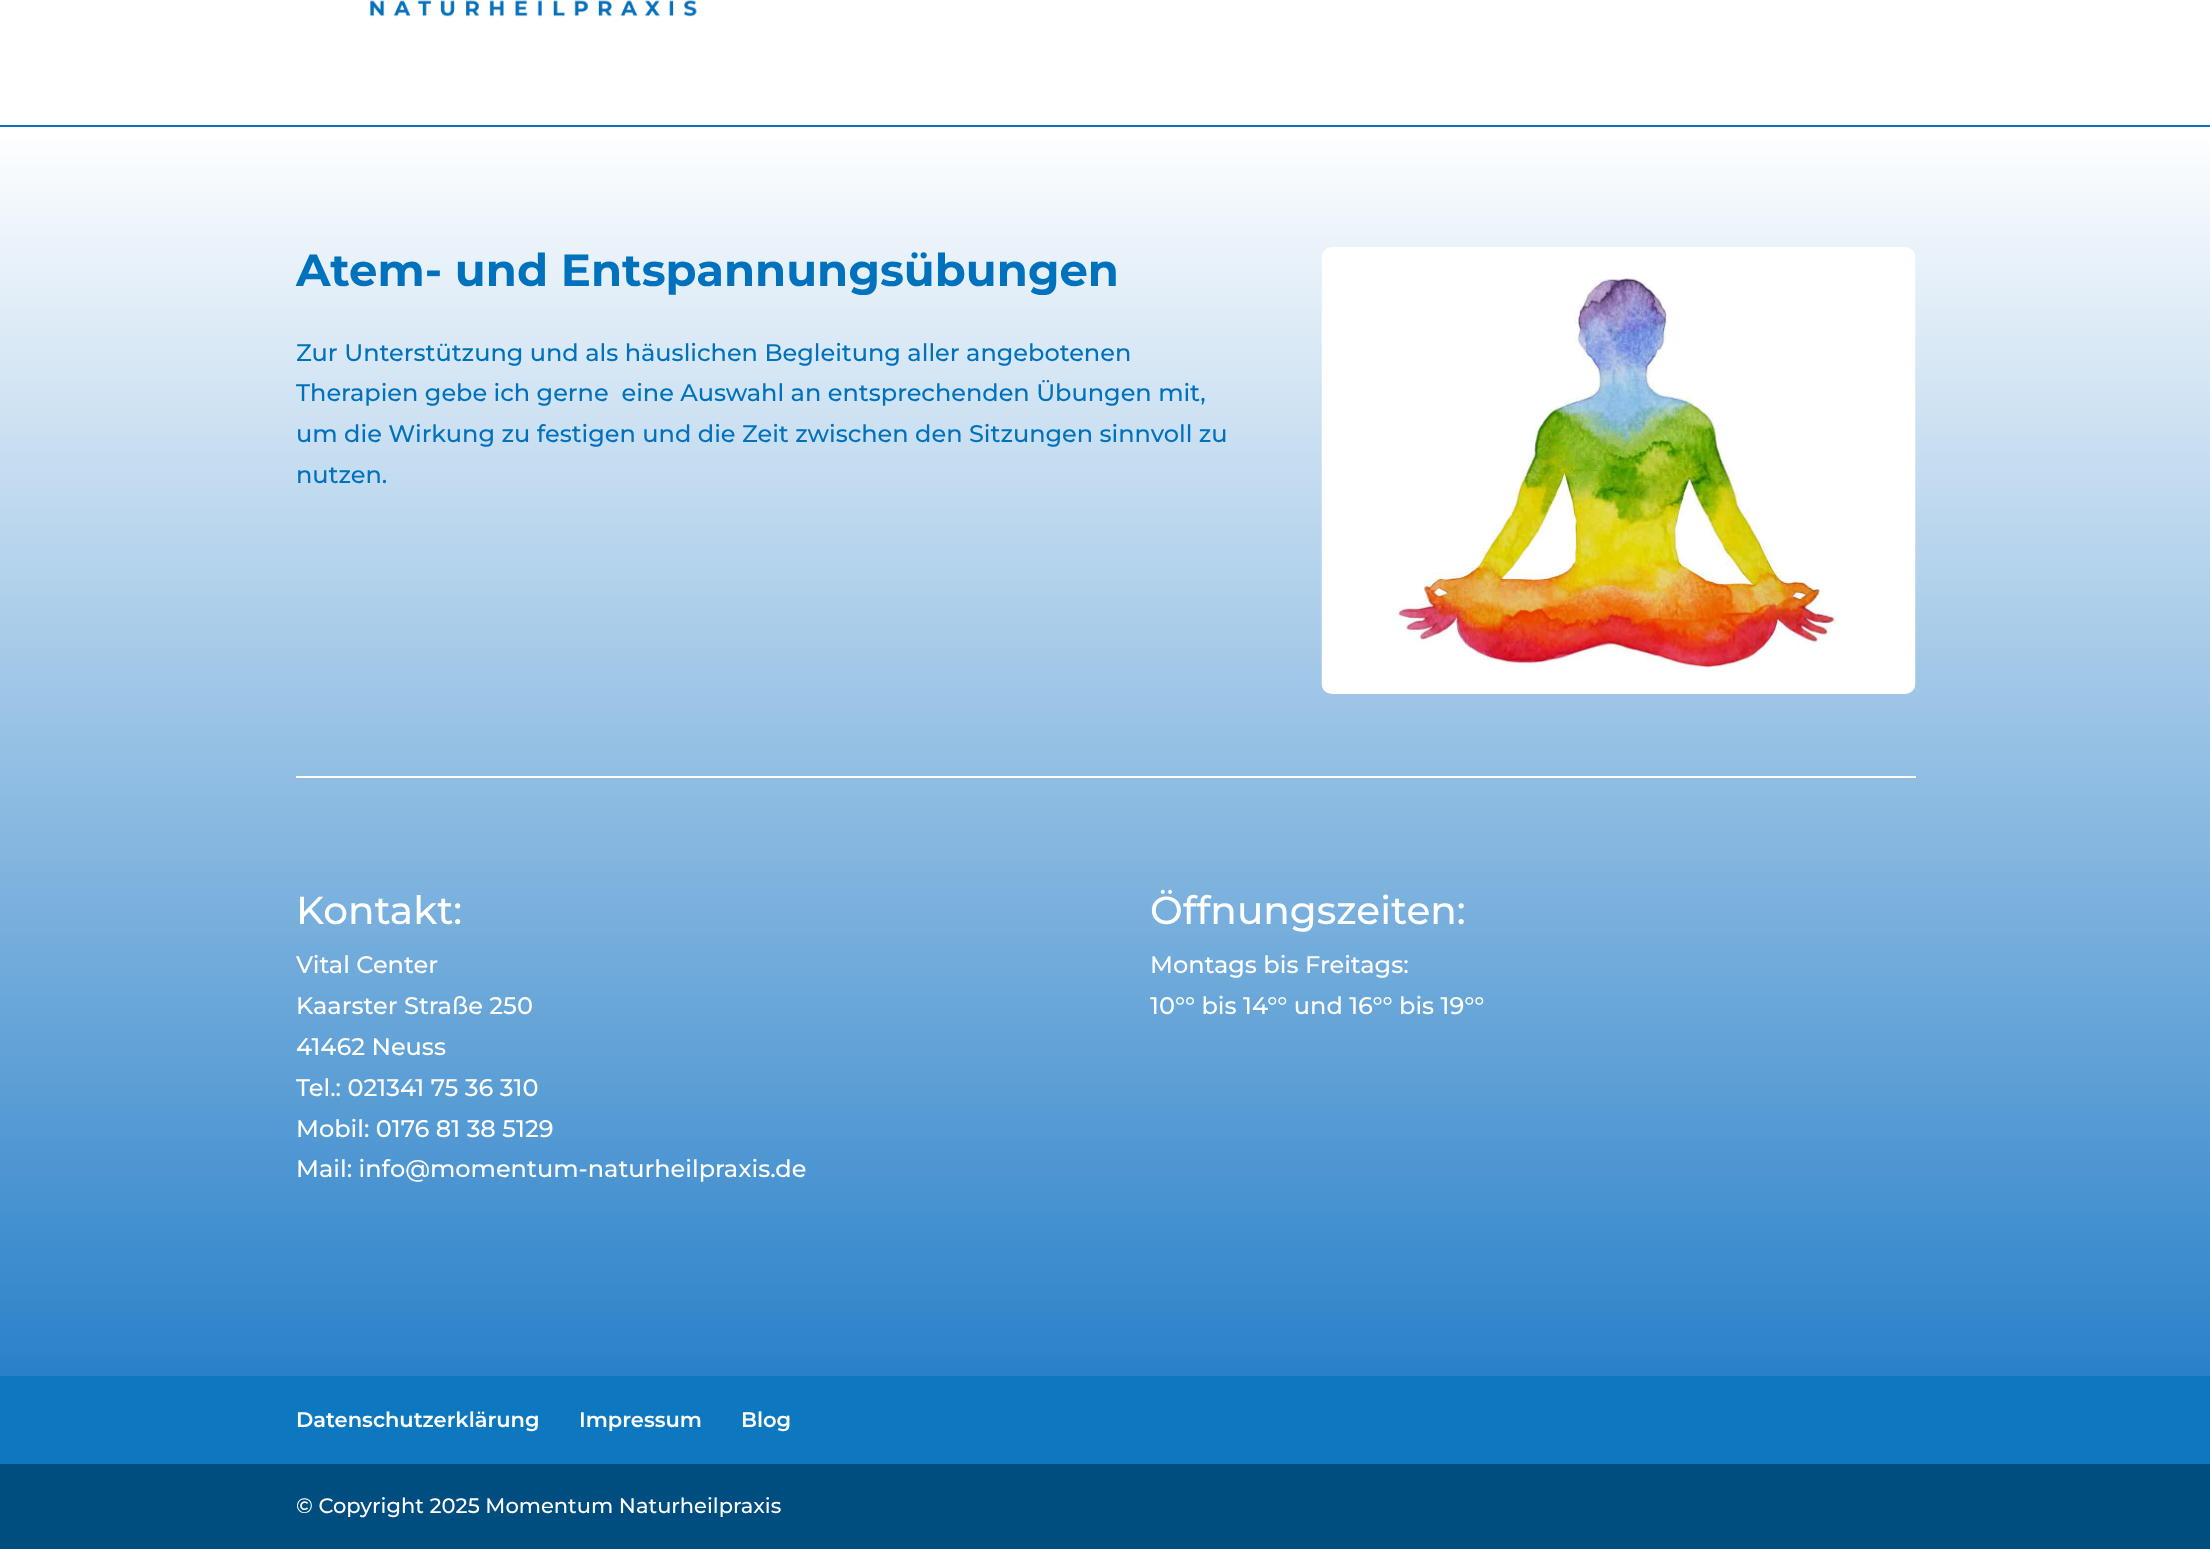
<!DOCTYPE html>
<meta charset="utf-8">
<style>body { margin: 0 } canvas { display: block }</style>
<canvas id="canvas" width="2210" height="1549"></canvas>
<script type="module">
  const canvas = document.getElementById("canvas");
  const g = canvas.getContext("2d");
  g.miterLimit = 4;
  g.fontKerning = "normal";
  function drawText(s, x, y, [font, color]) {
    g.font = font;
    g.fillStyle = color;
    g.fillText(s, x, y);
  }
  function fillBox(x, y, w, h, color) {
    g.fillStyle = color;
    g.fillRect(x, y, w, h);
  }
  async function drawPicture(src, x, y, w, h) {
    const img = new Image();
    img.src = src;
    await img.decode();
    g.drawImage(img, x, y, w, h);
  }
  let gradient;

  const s1 = ["bold 45px Montserrat", "#0071BC"];
  const s2 = ["500 24px Montserrat", "#0071BC"];
  const s3 = ["500 39px Montserrat", "#FFFFFF"];
  const s4 = ["500 24px Montserrat", "#FFFFFF"];
  const s5 = ["600 21px Montserrat", "#FFFFFF"];
  const s6 = ["500 21px Montserrat", "#FFFFFF"];

  fillBox(0, 0, 2210, 1549, "#FFFFFF");
  fillBox(0, 125, 2210, 2, "#0C71C3");
  await drawPicture("pic1.png", 369, 0, 328, 17);
  gradient = g.createLinearGradient(1106, 126, 1106, 1376);
  gradient.addColorStop(0, "#FFFFFF");
  gradient.addColorStop(1, "#2A81C9");
  g.fillStyle = gradient;
  g.fillRect(0, 141, 2210, 1235);
  drawText("Atem- und Entspannungsübungen", 296, 286, s1);
  drawText("Zur Unterstützung und als häuslichen Begleitung aller angebotenen", 296, 361, s2);
  drawText("Therapien gebe ich gerne  eine Auswahl an entsprechenden Übungen mit,", 296, 401, s2);
  drawText("um die Wirkung zu festigen und die Zeit zwischen den Sitzungen sinnvoll zu", 296, 442, s2);
  drawText("nutzen.", 296, 483, s2);
  await drawPicture("pic2.png", 1321, 247, 595, 447);
  fillBox(296, 776, 1620, 2, "#FFFFFF");
  drawText("Kontakt:", 296, 924, s3);
  drawText("Vital Center", 296, 973, s4);
  drawText("Kaarster Straße 250", 296, 1014, s4);
  drawText("41462 Neuss", 296, 1055, s4);
  drawText("Tel.: 021341 75 36 310", 296, 1096, s4);
  drawText("Mobil: 0176 81 38 5129", 296, 1137, s4);
  drawText("Mail: info@momentum-naturheilpraxis.de", 296, 1177, s4);
  drawText("Öffnungszeiten:", 1150, 924, s3);
  drawText("Montags bis Freitags:", 1150, 973, s4);
  drawText("10°° bis 14°° und 16°° bis 19°°", 1150, 1014, s4);
  fillBox(0, 1376, 2210, 88, "#0D78BF");
  drawText("Datenschutzerklärung", 296, 1427, s5);
  drawText("Impressum", 579, 1427, s5);
  drawText("Blog", 741, 1427, s5);
  fillBox(0, 1464, 2210, 85, "#004D80");
  drawText("© Copyright 2025 Momentum Naturheilpraxis", 296, 1513, s6);
</script>
